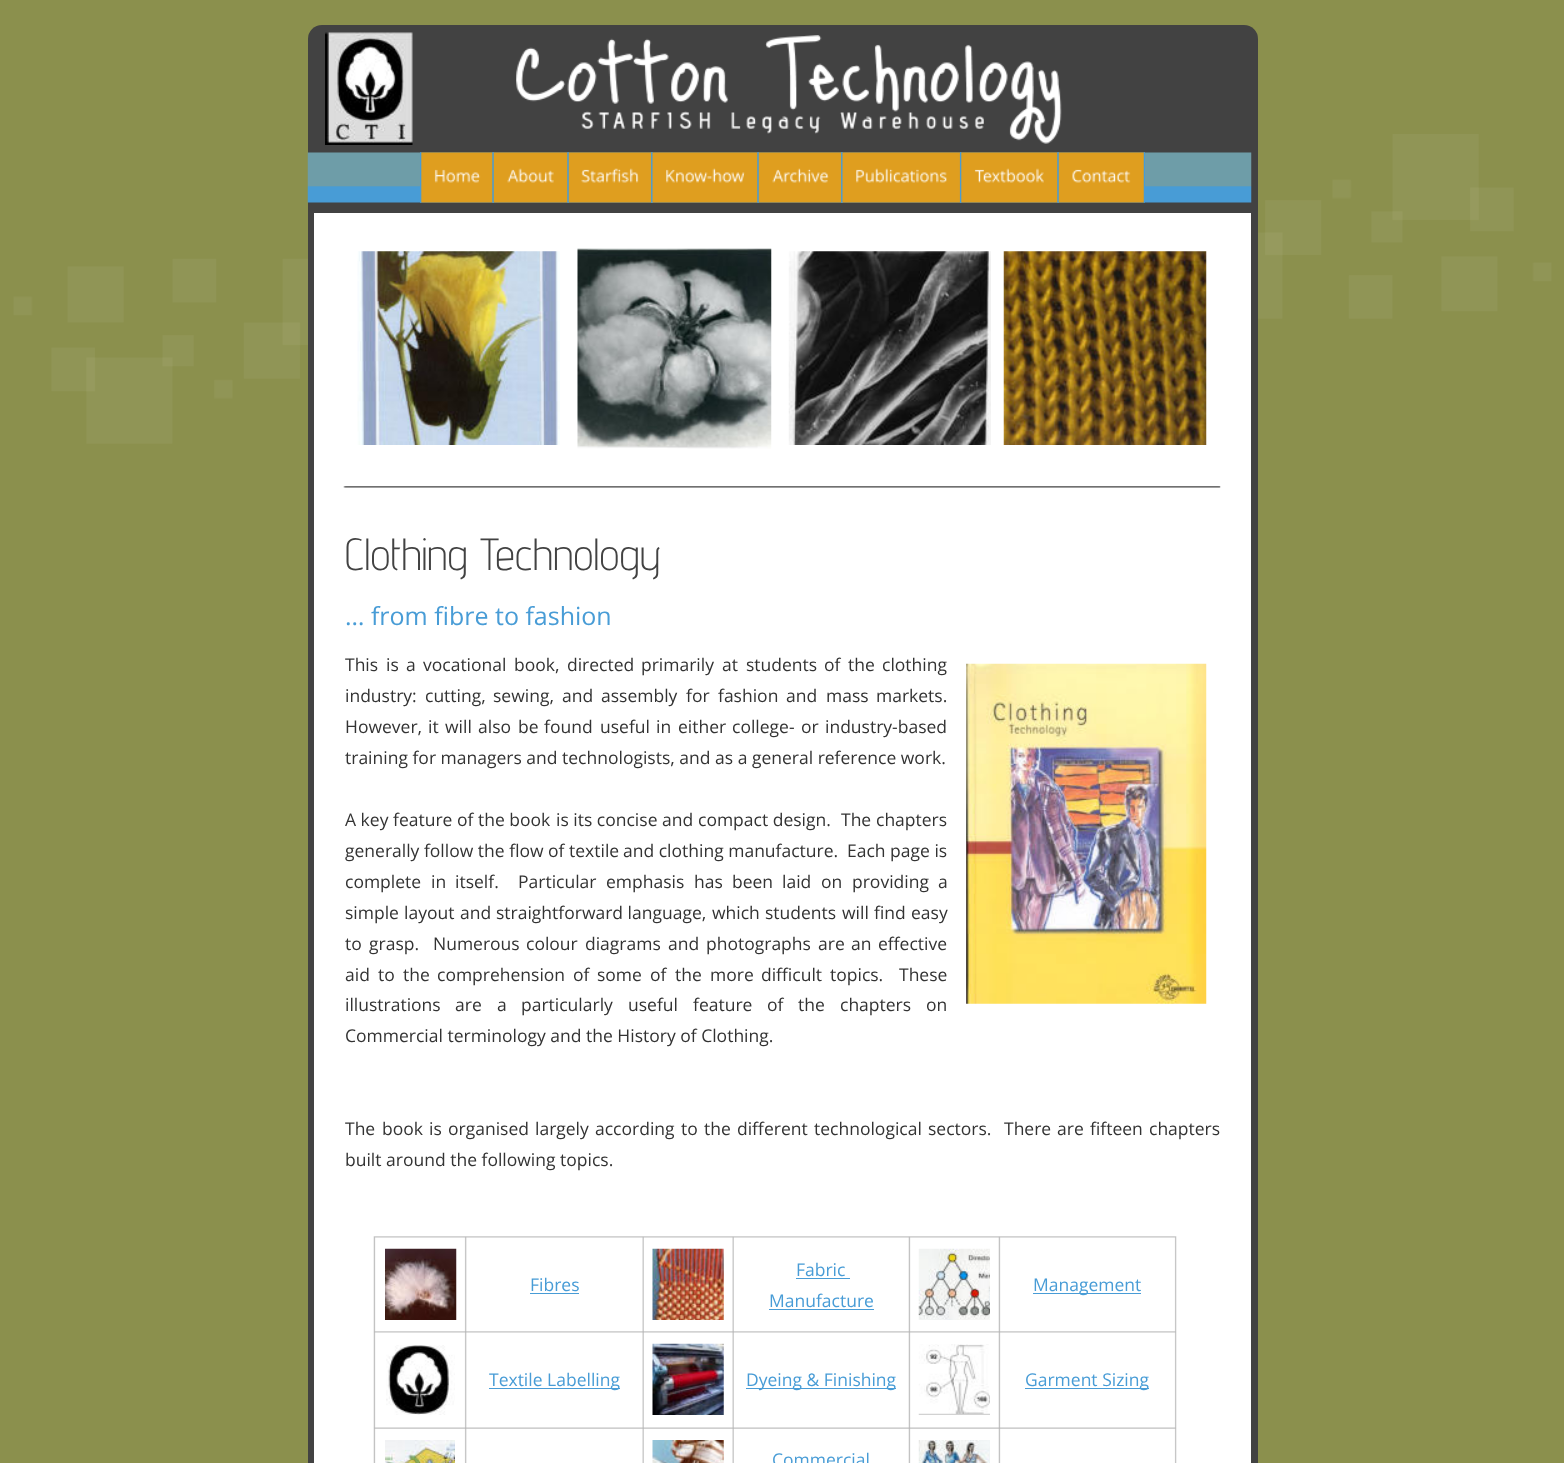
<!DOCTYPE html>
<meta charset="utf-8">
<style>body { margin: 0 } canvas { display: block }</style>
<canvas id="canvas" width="1564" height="1463"></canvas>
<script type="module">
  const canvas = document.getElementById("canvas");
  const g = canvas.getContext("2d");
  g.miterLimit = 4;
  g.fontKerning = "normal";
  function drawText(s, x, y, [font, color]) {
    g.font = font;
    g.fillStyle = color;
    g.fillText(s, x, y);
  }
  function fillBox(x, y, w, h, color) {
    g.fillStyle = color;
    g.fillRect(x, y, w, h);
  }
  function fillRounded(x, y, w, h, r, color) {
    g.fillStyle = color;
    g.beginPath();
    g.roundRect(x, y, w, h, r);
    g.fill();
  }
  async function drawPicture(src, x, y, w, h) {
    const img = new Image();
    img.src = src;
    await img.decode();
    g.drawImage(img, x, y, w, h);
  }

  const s1 = ["300 45px Advent Pro", "#424242"];
  const s2 = ["25px Open Sans", "#489CD6"];
  const s3 = ["17.5px Open Sans", "#333333"];
  const s4 = ["17.5px Open Sans", "#489CD6"];

  fillBox(0, 0, 1564, 1463, "#8B904D");
  await drawPicture("pic1.png", 13, 134, 1539, 310);
  fillRounded(308, 25, 950, 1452, 14, "#424242");
  fillBox(314, 213, 937, 1250, "#FFFFFF");
  await drawPicture("pic20.png", 307, 152, 945, 51);
  await drawPicture("pic2.png", 420, 152, 74, 51);
  await drawPicture("pic3.png", 492, 152, 77, 51);
  await drawPicture("pic4.png", 567, 152, 86, 51);
  await drawPicture("pic5.png", 651, 152, 108, 51);
  await drawPicture("pic6.png", 757, 152, 86, 51);
  await drawPicture("pic7.png", 841, 152, 121, 51);
  await drawPicture("pic8.png", 960, 152, 99, 51);
  await drawPicture("pic9.png", 1057, 152, 88, 51);
  await drawPicture("pic10.png", 420, 152, 74, 51);
  await drawPicture("pic11.png", 492, 152, 77, 51);
  await drawPicture("pic12.png", 567, 152, 86, 51);
  await drawPicture("pic13.png", 651, 152, 108, 51);
  await drawPicture("pic14.png", 757, 152, 86, 51);
  await drawPicture("pic15.png", 841, 152, 121, 51);
  await drawPicture("pic16.png", 960, 152, 99, 51);
  await drawPicture("pic17.png", 1057, 152, 88, 51);
  await drawPicture("pic18.png", 325, 32, 88, 113);
  await drawPicture("pic19.png", 516, 35, 546, 109);
  await drawPicture("pic21.png", 357, 251, 203, 194);
  await drawPicture("pic22.png", 577, 248, 195, 201);
  await drawPicture("pic23.png", 788, 251, 203, 194);
  await drawPicture("pic24.png", 1003, 251, 204, 194);
  await drawPicture("pic25.png", 343, 486, 878, 2);
  drawText("Clothing Technology", 345, 570, s1);
  drawText("… from fibre to fashion", 345, 625, s2);
  drawText("This", 345, 671, s3);
  drawText("is", 386, 671, s3);
  drawText("a", 406, 671, s3);
  drawText("vocational", 423, 671, s3);
  drawText("book,", 514, 671, s3);
  drawText("directed", 567, 671, s3);
  drawText("primarily", 641, 671, s3);
  drawText("at", 722, 671, s3);
  drawText("students", 746, 671, s3);
  drawText("of", 824, 671, s3);
  drawText("the", 848, 671, s3);
  drawText("clothing", 882, 671, s3);
  drawText("industry:", 345, 702, s3);
  drawText("cutting,", 425, 702, s3);
  drawText("sewing,", 493, 702, s3);
  drawText("and", 562, 702, s3);
  drawText("assembly", 601, 702, s3);
  drawText("for", 686, 702, s3);
  drawText("fashion", 718, 702, s3);
  drawText("and", 786, 702, s3);
  drawText("mass", 826, 702, s3);
  drawText("markets.", 876, 702, s3);
  drawText("However,", 345, 733, s3);
  drawText("it", 428, 733, s3);
  drawText("will", 445, 733, s3);
  drawText("also", 478, 733, s3);
  drawText("be", 518, 733, s3);
  drawText("found", 544, 733, s3);
  drawText("useful", 600, 733, s3);
  drawText("in", 656, 733, s3);
  drawText("either", 678, 733, s3);
  drawText("college-", 732, 733, s3);
  drawText("or", 801, 733, s3);
  drawText("industry-based", 825, 733, s3);
  drawText("training for managers and technologists, and as a general reference work.", 345, 764, s3);
  drawText("A key", 345, 826, s3);
  drawText("feature of", 393, 826, s3);
  drawText("the book", 478, 826, s3);
  drawText("is its concise and", 556, 826, s3);
  drawText("compact design.", 698, 826, s3);
  drawText("The", 841, 826, s3);
  drawText("chapters", 876, 826, s3);
  drawText("generally follow the flow of textile", 345, 857, s3);
  drawText("and clothing manufacture.", 623, 857, s3);
  drawText("Each page is", 847, 857, s3);
  drawText("complete", 345, 888, s3);
  drawText("in", 431, 888, s3);
  drawText("itself.", 455, 888, s3);
  drawText("Particular", 518, 888, s3);
  drawText("emphasis", 606, 888, s3);
  drawText("has", 694, 888, s3);
  drawText("been", 732, 888, s3);
  drawText("laid", 782, 888, s3);
  drawText("on", 821, 888, s3);
  drawText("providing", 852, 888, s3);
  drawText("a", 938, 888, s3);
  drawText("simple", 345, 919, s3);
  drawText("layout", 404, 919, s3);
  drawText("and", 460, 919, s3);
  drawText("straightforward language,", 496, 919, s3);
  drawText("which", 712, 919, s3);
  drawText("students", 765, 919, s3);
  drawText("will", 842, 919, s3);
  drawText("find", 874, 919, s3);
  drawText("easy", 911, 919, s3);
  drawText("to", 345, 950, s3);
  drawText("grasp.", 369, 950, s3);
  drawText("Numerous", 433, 950, s3);
  drawText("colour", 526, 950, s3);
  drawText("diagrams", 585, 950, s3);
  drawText("and", 668, 950, s3);
  drawText("photographs", 706, 950, s3);
  drawText("are", 818, 950, s3);
  drawText("an", 851, 950, s3);
  drawText("effective", 878, 950, s3);
  drawText("aid", 345, 981, s3);
  drawText("to", 378, 981, s3);
  drawText("the", 403, 981, s3);
  drawText("comprehension", 437, 981, s3);
  drawText("of", 573, 981, s3);
  drawText("some", 597, 981, s3);
  drawText("of", 650, 981, s3);
  drawText("the", 675, 981, s3);
  drawText("more", 710, 981, s3);
  drawText("difficult", 761, 981, s3);
  drawText("topics.", 830, 981, s3);
  drawText("These", 899, 981, s3);
  drawText("illustrations", 345, 1011, s3);
  drawText("are", 455, 1011, s3);
  drawText("a", 497, 1011, s3);
  drawText("particularly", 521, 1011, s3);
  drawText("useful", 628, 1011, s3);
  drawText("feature", 693, 1011, s3);
  drawText("of", 767, 1011, s3);
  drawText("the", 798, 1011, s3);
  drawText("chapters", 840, 1011, s3);
  drawText("on", 926, 1011, s3);
  drawText("Commercial terminology and the History of Clothing.", 345, 1042, s3);
  drawText("The", 345, 1135, s3);
  drawText("book", 382, 1135, s3);
  drawText("is", 429, 1135, s3);
  drawText("organised", 448, 1135, s3);
  drawText("largely", 535, 1135, s3);
  drawText("according", 595, 1135, s3);
  drawText("to", 681, 1135, s3);
  drawText("the", 704, 1135, s3);
  drawText("different", 737, 1135, s3);
  drawText("technological", 814, 1135, s3);
  drawText("sectors.", 928, 1135, s3);
  drawText("There", 1004, 1135, s3);
  drawText("are", 1057, 1135, s3);
  drawText("fifteen", 1090, 1135, s3);
  drawText("chapters", 1149, 1135, s3);
  drawText("built around the following topics.", 345, 1166, s3);
  await drawPicture("pic26.png", 966, 663, 241, 341);
  await drawPicture("pic27.png", 373, 1236, 804, 227);
  await drawPicture("pic28.png", 385, 1248, 72, 72);
  drawText("Fibres", 530, 1291, s4);
  fillBox(530, 1293, 49, 1, "#489CD6");
  await drawPicture("pic29.png", 652, 1248, 72, 72);
  drawText("Fabric", 796, 1276, s4);
  fillBox(796, 1278, 54, 1, "#489CD6");
  drawText("Manufacture", 769, 1307, s4);
  fillBox(769, 1309, 105, 1, "#489CD6");
  await drawPicture("pic30.png", 918, 1248, 72, 72);
  fillBox(1033, 1293, 108, 1, "#489CD6");
  drawText("Management", 1033, 1291, s4);
  await drawPicture("pic31.png", 386, 1345, 69, 70);
  fillBox(489, 1388, 131, 1, "#489CD6");
  drawText("Textile Labelling", 489, 1386, s4);
  await drawPicture("pic32.png", 652, 1343, 72, 72);
  fillBox(746, 1388, 150, 1, "#489CD6");
  drawText("Dyeing & Finishing", 746, 1386, s4);
  await drawPicture("pic33.png", 918, 1344, 72, 71);
  fillBox(1025, 1388, 124, 1, "#489CD6");
  drawText("Garment Sizing", 1025, 1386, s4);
  await drawPicture("pic34.png", 385, 1440, 70, 23);
  await drawPicture("pic35.png", 652, 1440, 72, 23);
  drawText("Commercial", 772, 1466, s4);
  await drawPicture("pic36.png", 918, 1440, 72, 23);
</script>
